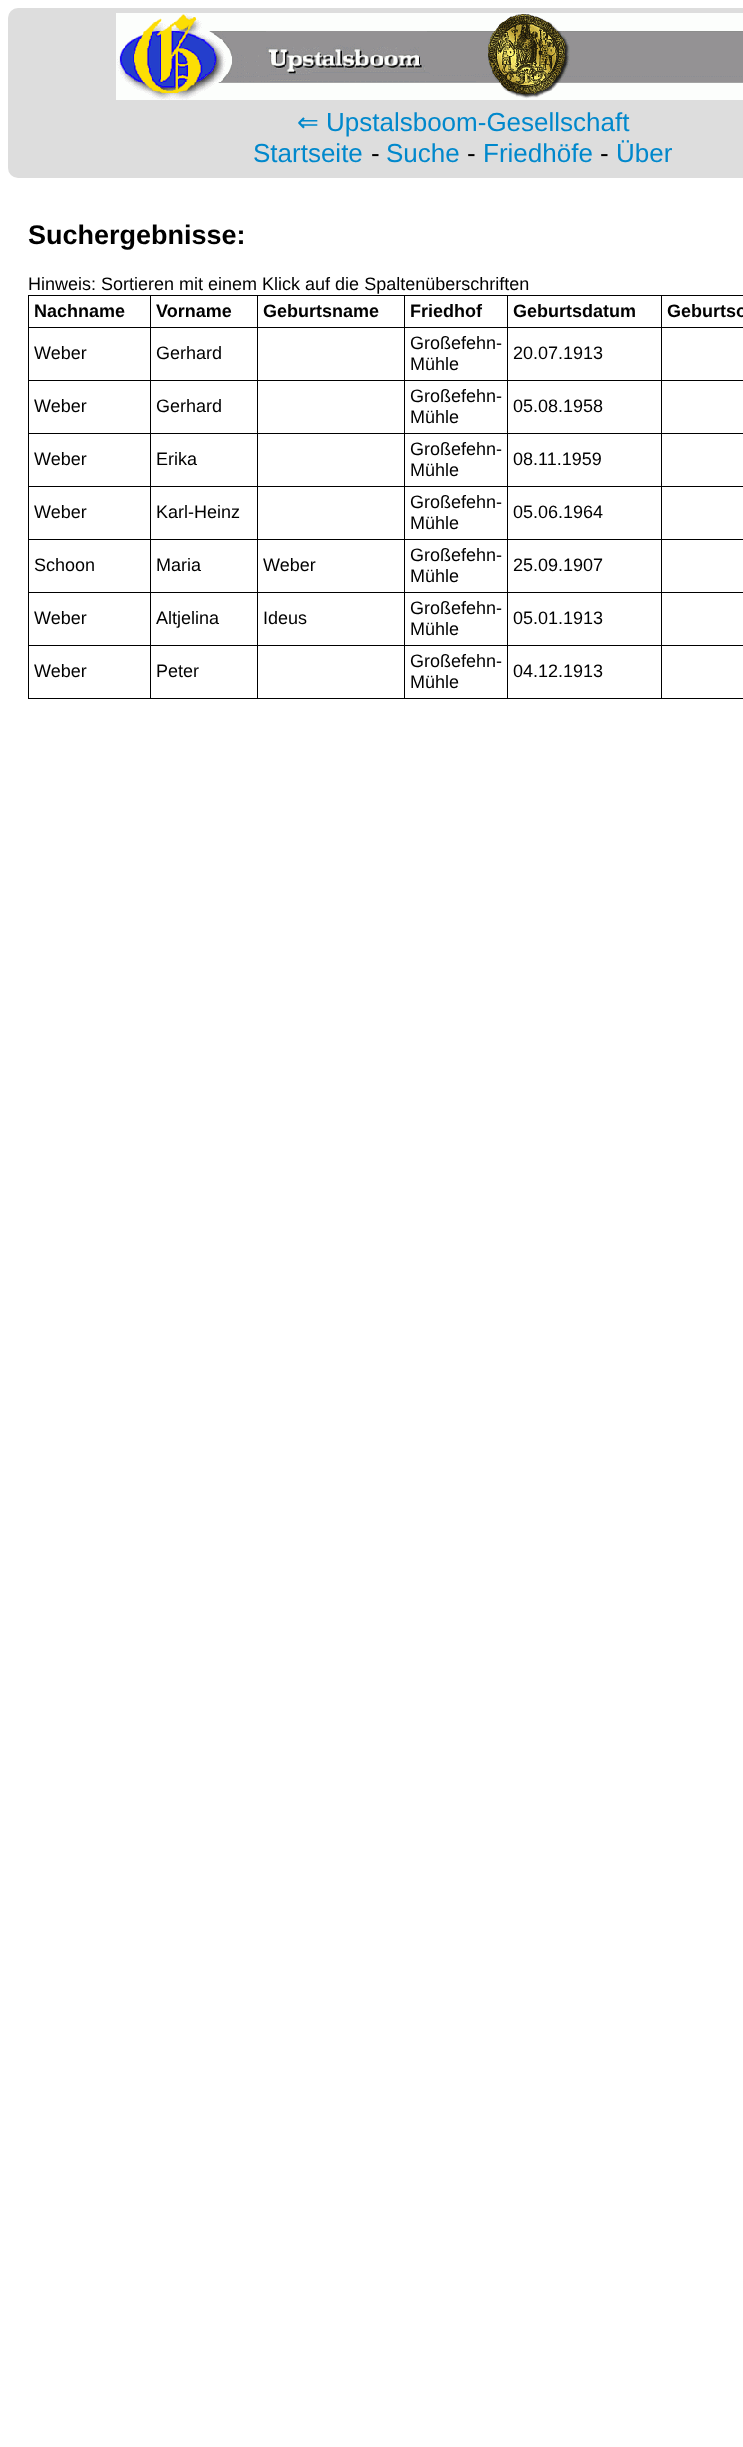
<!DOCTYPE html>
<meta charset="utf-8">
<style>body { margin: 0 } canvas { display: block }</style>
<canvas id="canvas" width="743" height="2447"></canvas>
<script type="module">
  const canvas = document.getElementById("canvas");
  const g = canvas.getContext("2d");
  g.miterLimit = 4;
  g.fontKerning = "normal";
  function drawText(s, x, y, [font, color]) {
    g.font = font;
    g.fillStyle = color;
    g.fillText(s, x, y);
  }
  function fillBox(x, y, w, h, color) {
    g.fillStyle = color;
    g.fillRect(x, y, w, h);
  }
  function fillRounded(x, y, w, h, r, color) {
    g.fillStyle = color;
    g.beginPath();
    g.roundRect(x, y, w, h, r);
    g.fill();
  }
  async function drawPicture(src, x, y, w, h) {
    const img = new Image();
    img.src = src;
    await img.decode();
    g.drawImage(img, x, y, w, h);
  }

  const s1 = ["26px DejaVu Sans", "#0088CC"];
  const s2 = ["26px Liberation Sans", "#0088CC"];
  const s3 = ["26px Liberation Sans", "#000000"];
  const s4 = ["bold 27px Liberation Sans", "#000000"];
  const s5 = ["18px Liberation Sans", "#000000"];
  const s6 = ["bold 18px Liberation Sans", "#000000"];

  fillBox(0, 0, 743, 2447, "#FFFFFF");
  fillRounded(8, 8, 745, 170, 10, "#DDDDDD");
  await drawPicture("pic1.png", 116, 13, 627, 87);
  drawText("⇐", 297, 131, s1);
  drawText("Upstalsboom-Gesellschaft", 326, 131, s2);
  drawText("Startseite", 253, 162, s2);
  drawText("-", 371, 162, s3);
  drawText("Suche", 386, 162, s2);
  drawText("-", 467, 162, s3);
  drawText("Friedhöfe", 483, 162, s2);
  drawText("-", 600, 162, s3);
  drawText("Über", 616, 162, s2);
  drawText("Suchergebnisse:", 28, 244, s4);
  drawText("Hinweis: Sortieren mit einem Klick auf die Spaltenüberschriften", 28, 290, s5);
  fillBox(28, 295, 715, 1, "#000000");
  fillBox(28, 698, 715, 1, "#000000");
  fillBox(28, 295, 1, 404, "#000000");
  drawText("Nachname", 34, 317, s6);
  fillBox(661, 327, 82, 1, "#000000");
  fillBox(661, 380, 82, 1, "#000000");
  fillBox(661, 433, 82, 1, "#000000");
  fillBox(661, 486, 82, 1, "#000000");
  fillBox(661, 539, 82, 1, "#000000");
  fillBox(661, 592, 82, 1, "#000000");
  fillBox(661, 645, 82, 1, "#000000");
  fillBox(661, 645, 1, 54, "#000000");
  fillBox(507, 645, 155, 1, "#000000");
  fillBox(661, 592, 1, 54, "#000000");
  fillBox(507, 592, 155, 1, "#000000");
  fillBox(661, 539, 1, 54, "#000000");
  fillBox(507, 539, 155, 1, "#000000");
  fillBox(661, 486, 1, 54, "#000000");
  fillBox(507, 486, 155, 1, "#000000");
  fillBox(661, 433, 1, 54, "#000000");
  fillBox(507, 433, 155, 1, "#000000");
  fillBox(661, 380, 1, 54, "#000000");
  fillBox(507, 380, 155, 1, "#000000");
  fillBox(661, 327, 1, 54, "#000000");
  fillBox(507, 327, 155, 1, "#000000");
  fillBox(507, 645, 1, 54, "#000000");
  fillBox(404, 645, 104, 1, "#000000");
  fillBox(507, 592, 1, 54, "#000000");
  fillBox(404, 592, 104, 1, "#000000");
  fillBox(507, 539, 1, 54, "#000000");
  fillBox(404, 539, 104, 1, "#000000");
  fillBox(507, 486, 1, 54, "#000000");
  fillBox(404, 486, 104, 1, "#000000");
  fillBox(507, 433, 1, 54, "#000000");
  fillBox(404, 433, 104, 1, "#000000");
  fillBox(507, 380, 1, 54, "#000000");
  fillBox(404, 380, 104, 1, "#000000");
  fillBox(507, 327, 1, 54, "#000000");
  fillBox(404, 327, 104, 1, "#000000");
  fillBox(404, 645, 1, 54, "#000000");
  fillBox(257, 645, 148, 1, "#000000");
  fillBox(404, 592, 1, 54, "#000000");
  fillBox(257, 592, 148, 1, "#000000");
  fillBox(404, 539, 1, 54, "#000000");
  fillBox(257, 539, 148, 1, "#000000");
  fillBox(404, 486, 1, 54, "#000000");
  fillBox(257, 486, 148, 1, "#000000");
  fillBox(404, 433, 1, 54, "#000000");
  fillBox(257, 433, 148, 1, "#000000");
  fillBox(404, 380, 1, 54, "#000000");
  fillBox(257, 380, 148, 1, "#000000");
  fillBox(404, 327, 1, 54, "#000000");
  fillBox(257, 327, 148, 1, "#000000");
  fillBox(257, 645, 1, 54, "#000000");
  fillBox(150, 645, 108, 1, "#000000");
  fillBox(257, 592, 1, 54, "#000000");
  fillBox(150, 592, 108, 1, "#000000");
  fillBox(257, 539, 1, 54, "#000000");
  fillBox(150, 539, 108, 1, "#000000");
  fillBox(257, 486, 1, 54, "#000000");
  fillBox(150, 486, 108, 1, "#000000");
  fillBox(257, 433, 1, 54, "#000000");
  fillBox(150, 433, 108, 1, "#000000");
  fillBox(257, 380, 1, 54, "#000000");
  fillBox(150, 380, 108, 1, "#000000");
  fillBox(257, 327, 1, 54, "#000000");
  fillBox(150, 327, 108, 1, "#000000");
  fillBox(150, 645, 1, 54, "#000000");
  fillBox(28, 645, 123, 1, "#000000");
  fillBox(150, 592, 1, 54, "#000000");
  fillBox(28, 592, 123, 1, "#000000");
  fillBox(150, 539, 1, 54, "#000000");
  fillBox(28, 539, 123, 1, "#000000");
  fillBox(150, 486, 1, 54, "#000000");
  fillBox(28, 486, 123, 1, "#000000");
  fillBox(150, 433, 1, 54, "#000000");
  fillBox(28, 433, 123, 1, "#000000");
  fillBox(150, 380, 1, 54, "#000000");
  fillBox(28, 380, 123, 1, "#000000");
  fillBox(150, 327, 1, 54, "#000000");
  fillBox(28, 327, 123, 1, "#000000");
  fillBox(150, 295, 1, 33, "#000000");
  drawText("Vorname", 156, 317, s6);
  fillBox(257, 295, 1, 33, "#000000");
  drawText("Geburtsname", 263, 317, s6);
  fillBox(404, 295, 1, 33, "#000000");
  drawText("Friedhof", 410, 317, s6);
  fillBox(507, 295, 1, 33, "#000000");
  drawText("Geburtsdatum", 513, 317, s6);
  fillBox(661, 295, 1, 33, "#000000");
  drawText("Geburtso", 667, 317, s6);
  drawText("Weber", 34, 359, s5);
  drawText("Gerhard", 156, 359, s5);
  drawText("Großefehn-", 410, 349, s5);
  drawText("Mühle", 410, 370, s5);
  drawText("20.07.1913", 513, 359, s5);
  drawText("Weber", 34, 412, s5);
  drawText("Gerhard", 156, 412, s5);
  drawText("Großefehn-", 410, 402, s5);
  drawText("Mühle", 410, 423, s5);
  drawText("05.08.1958", 513, 412, s5);
  drawText("Weber", 34, 465, s5);
  drawText("Erika", 156, 465, s5);
  drawText("Großefehn-", 410, 455, s5);
  drawText("Mühle", 410, 476, s5);
  drawText("08.11.1959", 513, 465, s5);
  drawText("Weber", 34, 518, s5);
  drawText("Karl-Heinz", 156, 518, s5);
  drawText("Großefehn-", 410, 508, s5);
  drawText("Mühle", 410, 529, s5);
  drawText("05.06.1964", 513, 518, s5);
  drawText("Schoon", 34, 571, s5);
  drawText("Maria", 156, 571, s5);
  drawText("Weber", 263, 571, s5);
  drawText("Großefehn-", 410, 561, s5);
  drawText("Mühle", 410, 582, s5);
  drawText("25.09.1907", 513, 571, s5);
  drawText("Weber", 34, 624, s5);
  drawText("Altjelina", 156, 624, s5);
  drawText("Ideus", 263, 624, s5);
  drawText("Großefehn-", 410, 614, s5);
  drawText("Mühle", 410, 635, s5);
  drawText("05.01.1913", 513, 624, s5);
  drawText("Weber", 34, 677, s5);
  drawText("Peter", 156, 677, s5);
  drawText("Großefehn-", 410, 667, s5);
  drawText("Mühle", 410, 688, s5);
  drawText("04.12.1913", 513, 677, s5);
</script>
